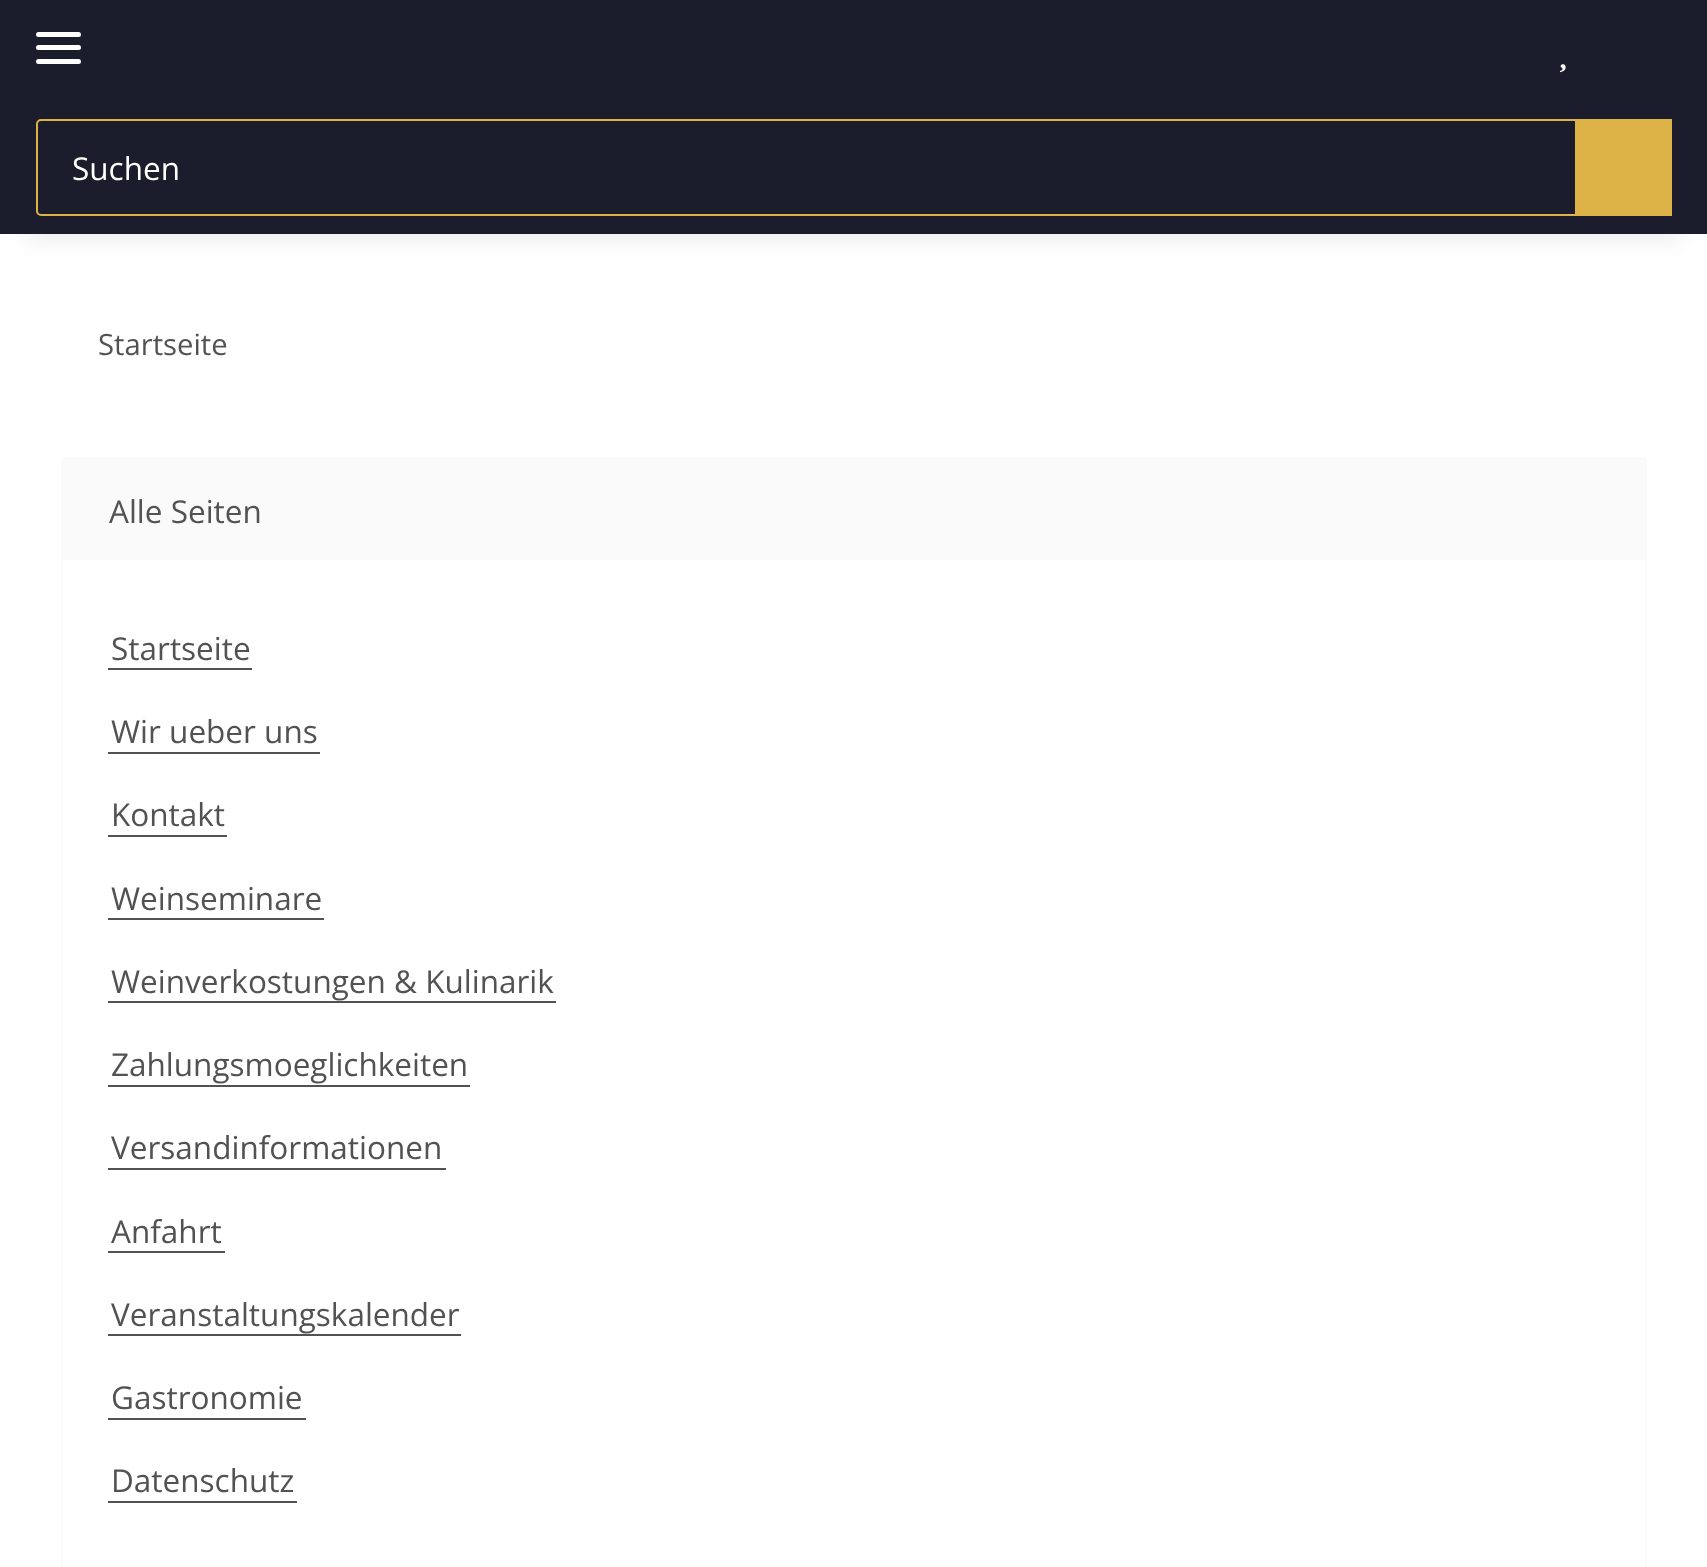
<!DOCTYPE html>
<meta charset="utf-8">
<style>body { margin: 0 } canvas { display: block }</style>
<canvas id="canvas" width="1707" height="1567"></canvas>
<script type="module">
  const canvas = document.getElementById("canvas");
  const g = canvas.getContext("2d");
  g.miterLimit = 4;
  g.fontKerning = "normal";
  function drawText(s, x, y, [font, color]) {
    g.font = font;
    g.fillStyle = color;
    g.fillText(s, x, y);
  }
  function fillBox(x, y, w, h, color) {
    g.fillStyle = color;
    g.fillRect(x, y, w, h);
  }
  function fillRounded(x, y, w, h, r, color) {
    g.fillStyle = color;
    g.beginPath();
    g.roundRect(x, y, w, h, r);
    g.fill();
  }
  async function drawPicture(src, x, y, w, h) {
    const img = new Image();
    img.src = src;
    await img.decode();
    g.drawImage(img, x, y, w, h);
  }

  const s1 = ["31.5px Open Sans", "#FFFFFF"];
  const s2 = ["29.25px Open Sans", "#525252"];
  const s3 = ["31.5px Open Sans", "#525252"];

  fillBox(0, 0, 1707, 1567, "#FFFFFF");
  g.fillStyle = "rgba(0, 0, 0, 0.06)";
  g.filter = "blur(10px)";
  g.beginPath();
  g.rect(27, 63, 1654, 180);
  g.fill();
  g.filter = "none";
  fillBox(0, 0, 1707, 234, "#1C1D2C");
  fillRounded(36, 45, 45, 5, 2.5, "#FFFFFF");
  fillRounded(36, 32, 45, 5, 2.5, "#FFFFFF");
  fillRounded(36, 59, 45, 5, 2.5, "#FFFFFF");
  await drawPicture("pic1.png", 1559, 64, 7, 9);
  g.beginPath();
  g.roundRect(37, 120, 1539, 95, [4, 0, 0, 4]);
  g.strokeStyle = "#DDB246";
  g.lineWidth = 2;
  g.stroke();
  drawText("Suchen", 72, 180, s1);
  fillBox(1577, 119, 95, 97, "#DDB246");
  drawText("Startseite", 98, 355, s2);
  g.beginPath();
  g.roundRect(62, 458, 1584, 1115, 4);
  g.strokeStyle = "#FAFAFA";
  g.stroke();
  g.fillStyle = "#FAFAFA";
  g.beginPath();
  g.roundRect(63, 459, 1582, 101, [2, 2, 0, 0]);
  g.fill();
  drawText("Alle Seiten", 109, 523, s3);
  drawText("Startseite", 111, 660, s3);
  fillBox(108, 668, 144, 2, "#525252");
  drawText("Wir ueber uns", 111, 743, s3);
  fillBox(108, 752, 212, 2, "#525252");
  drawText("Kontakt", 111, 826, s3);
  fillBox(108, 835, 119, 2, "#525252");
  drawText("Weinseminare", 111, 910, s3);
  fillBox(108, 918, 216, 2, "#525252");
  drawText("Weinverkostungen & Kulinarik", 111, 993, s3);
  fillBox(108, 1001, 448, 2, "#525252");
  drawText("Zahlungsmoeglichkeiten", 111, 1076, s3);
  fillBox(108, 1085, 362, 2, "#525252");
  drawText("Versandinformationen", 111, 1159, s3);
  fillBox(108, 1168, 338, 2, "#525252");
  drawText("Anfahrt", 111, 1243, s3);
  fillBox(108, 1251, 117, 2, "#525252");
  drawText("Veranstaltungskalender", 111, 1326, s3);
  fillBox(108, 1334, 353, 2, "#525252");
  drawText("Gastronomie", 111, 1409, s3);
  fillBox(108, 1418, 198, 2, "#525252");
  drawText("Datenschutz", 111, 1492, s3);
  fillBox(108, 1501, 189, 2, "#525252");
</script>
